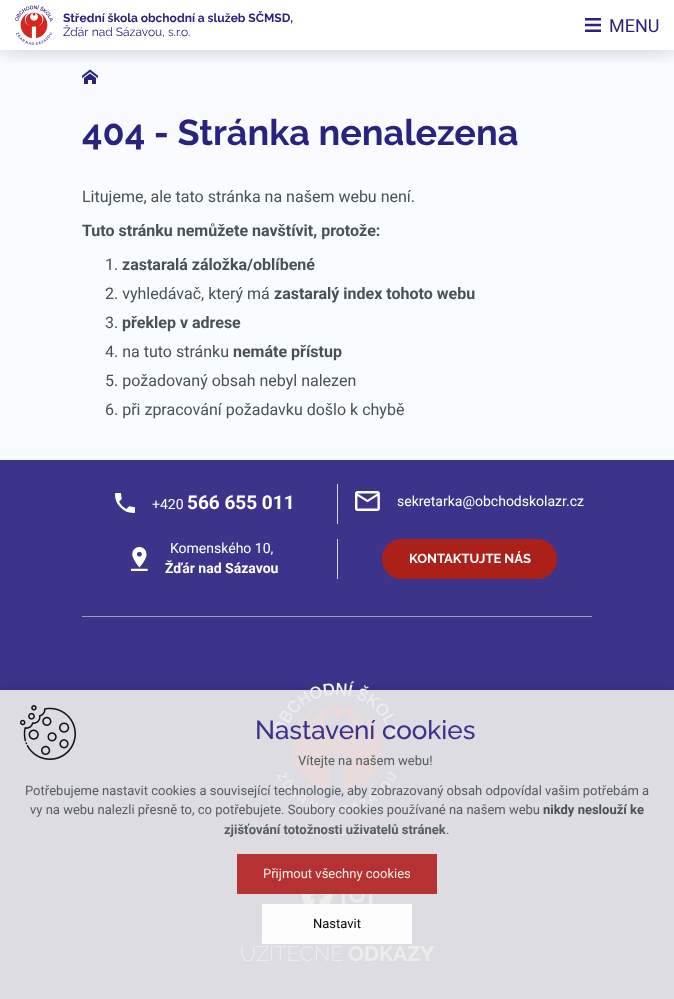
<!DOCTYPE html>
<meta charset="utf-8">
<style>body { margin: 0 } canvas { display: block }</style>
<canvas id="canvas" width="674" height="999"></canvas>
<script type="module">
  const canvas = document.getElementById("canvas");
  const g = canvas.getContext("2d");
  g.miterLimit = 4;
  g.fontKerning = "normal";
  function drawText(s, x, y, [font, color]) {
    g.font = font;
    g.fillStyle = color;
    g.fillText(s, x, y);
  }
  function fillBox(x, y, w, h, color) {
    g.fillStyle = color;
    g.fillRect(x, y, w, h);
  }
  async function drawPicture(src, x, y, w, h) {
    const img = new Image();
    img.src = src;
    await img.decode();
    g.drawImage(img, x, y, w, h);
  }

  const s1 = ["bold 12px Raleway", "#2B2280"];
  const s2 = ["12px Raleway", "#2B2280"];
  const s3 = ["18px Roboto", "#2B2280"];
  const s4 = ["bold 36px Raleway", "#2B2280"];
  const s5 = ["16px Roboto", "#495057"];
  const s6 = ["bold 16px Roboto", "#495057"];
  const s7 = ["14px Roboto", "#FFFFFF"];
  const s8 = ["bold 19px Roboto", "#FFFFFF"];
  const s9 = ["bold 14px Roboto", "#FFFFFF"];
  const s10 = ["bold 13px Raleway", "#FFFFFF"];
  const s11 = ["300 21px Raleway", "#EDEDED"];
  const s12 = ["bold 21px Raleway", "#EDEDED"];
  const s13 = ["500 26px Raleway", "#3A3188"];
  const s14 = ["13px Roboto", "#555B62"];
  const s15 = ["bold 13px Roboto", "#495057"];
  const s16 = ["bold 13px Roboto", "#555B62"];
  const s17 = ["13px Roboto", "#495057"];
  const s18 = ["13px Roboto", "#F9EFEF"];
  const s19 = ["13px Roboto", "#05040B"];

  fillBox(0, 0, 674, 999, "#FFFFFF");
  fillBox(0, 50, 674, 410, "#F8FBFF");
  await drawPicture("pic3.png", 82, 69, 16, 15);
  g.save();
  g.beginPath();
  g.rect(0, 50, 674, 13);
  g.clip();
  g.fillStyle = "rgba(0, 0, 0, 0.2)";
  g.filter = "blur(10px)";
  g.beginPath();
  g.rect(0, 0, 674, 50);
  g.fill();
  g.filter = "none";
  g.restore();
  await drawPicture("pic1.png", 15, 5, 38, 40);
  drawText("Střední škola obchodní a služeb SČMSD,", 63, 22, s1);
  drawText("Žďár nad Sázavou, s.r.o.", 63, 36, s2);
  await drawPicture("pic2.png", 585, 18, 16, 14);
  drawText("MENU", 609, 32, s3);
  drawText("404 - Stránka nenalezena", 82, 145, s4);
  drawText("Litujeme, ale tato stránka na našem webu není.", 82, 202, s5);
  drawText("Tuto stránku nemůžete navštívit, protože:", 82, 236, s6);
  drawText("1.", 105, 270, s5);
  drawText("zastaralá záložka/oblíbené", 122, 270, s6);
  drawText("2. vyhledávač, který má", 105, 299, s5);
  drawText("zastaralý index tohoto webu", 274, 299, s6);
  drawText("3.", 105, 328, s5);
  drawText("překlep v adrese", 122, 328, s6);
  drawText("4. na tuto stránku", 105, 357, s5);
  drawText("nemáte přístup", 233, 357, s6);
  drawText("5. požadovaný obsah nebyl nalezen", 105, 386, s5);
  drawText("6. při zpracování požadavku došlo k chybě", 105, 415, s5);
  fillBox(0, 460, 674, 230, "#3C348A");
  fillBox(0, 690, 674, 309, "#DDDCE3");
  fillBox(82, 616, 510, 1, "#9E9AC5");
  await drawPicture("pic4.png", 115, 493, 20, 20);
  drawText("+420", 152, 509, s7);
  drawText("566 655 011", 187, 509, s8);
  fillBox(337, 484, 1, 40, "#D8D6E8");
  await drawPicture("pic5.png", 355, 491, 25, 20);
  drawText("sekretarka@obchodskolazr.cz", 397, 506, s7);
  await drawPicture("pic6.png", 131, 547, 17, 24);
  drawText("Komenského 10,", 170, 553, s7);
  drawText("Žďár nad Sázavou", 165, 573, s9);
  fillBox(337, 539, 1, 40, "#D8D6E8");
  g.fillStyle = "#AB2019";
  g.beginPath();
  g.roundRect(383, 540, 173, 38, 19);
  g.fill();
  g.strokeStyle = "#AB2019";
  g.lineWidth = 2;
  g.stroke();
  drawText("KONTAKTUJTE NÁS", 409, 563, s10);
  await drawPicture("pic7.png", 274, 681, 126, 133);
  fillBox(274, 834, 126, 1, "#E5E5E8");
  await drawPicture("pic8.png", 302, 880, 30, 30);
  await drawPicture("pic9.png", 342, 880, 30, 30);
  drawText("UŽITEČNÉ", 240, 961, s11);
  drawText("ODKAZY", 348, 961, s12);
  g.save();
  g.beginPath();
  g.rect(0, 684, 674, 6);
  g.clip();
  g.fillStyle = "rgba(1, 1, 1, 0.18)";
  g.filter = "blur(5px)";
  g.beginPath();
  g.rect(0, 690, 674, 309);
  g.fill();
  g.filter = "none";
  g.restore();
  await drawPicture("pic10.png", 20, 705, 56, 55);
  drawText("Nastavení cookies", 255, 739, s13);
  drawText("Vítejte na našem webu!", 298, 765, s14);
  drawText("Potřebujeme nastavit cookies a související technologie, aby zobrazovaný obsah odpovídal vašim potřebám a", 25, 795, s14);
  drawText("vy na webu nalezli přesně to, co potřebujete. Soubory cookies používané na našem webu", 30, 814, s14);
  drawText("nikdy neslouží ke", 543, 814, s15);
  drawText("zjišťování totožnosti uživatelů stránek", 224, 834, s16);
  drawText(".", 446, 834, s17);
  fillBox(237, 854, 200, 40, "rgba(178, 34, 34, 0.92)");
  drawText("Přijmout všechny cookies", 263, 878, s18);
  fillBox(262, 904, 150, 40, "rgba(255, 255, 255, 0.92)");
  drawText("Nastavit", 313, 928, s19);
</script>
